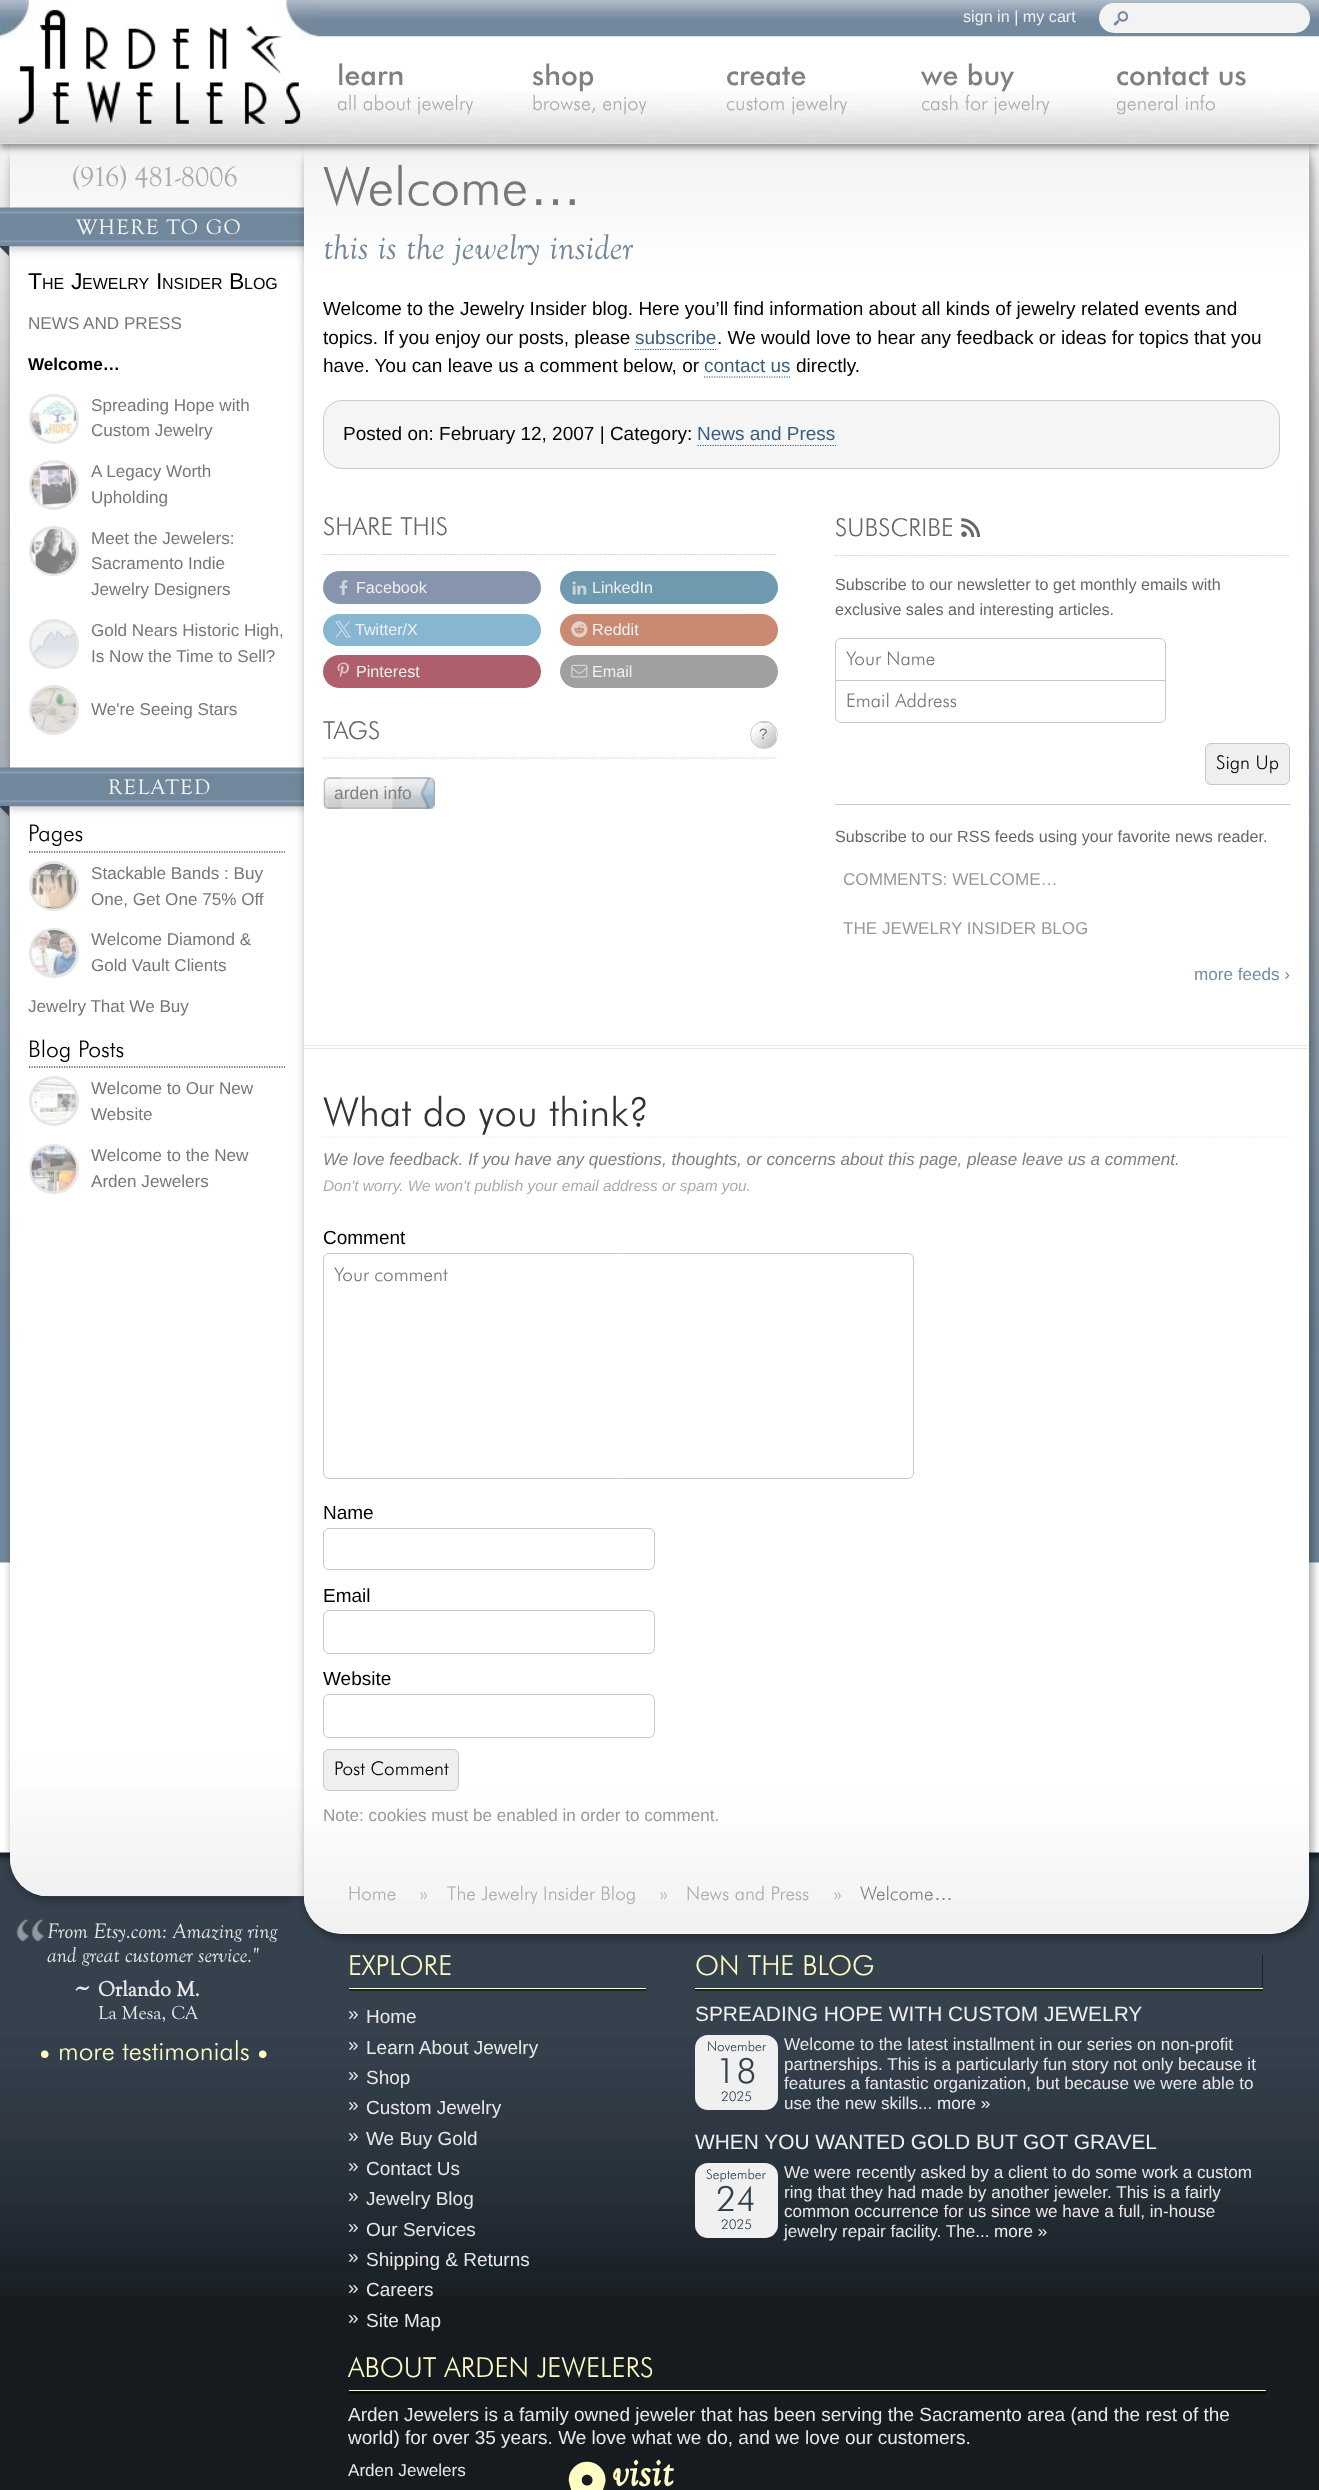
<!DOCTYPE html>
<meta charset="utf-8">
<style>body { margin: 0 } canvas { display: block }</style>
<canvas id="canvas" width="1319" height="2490"></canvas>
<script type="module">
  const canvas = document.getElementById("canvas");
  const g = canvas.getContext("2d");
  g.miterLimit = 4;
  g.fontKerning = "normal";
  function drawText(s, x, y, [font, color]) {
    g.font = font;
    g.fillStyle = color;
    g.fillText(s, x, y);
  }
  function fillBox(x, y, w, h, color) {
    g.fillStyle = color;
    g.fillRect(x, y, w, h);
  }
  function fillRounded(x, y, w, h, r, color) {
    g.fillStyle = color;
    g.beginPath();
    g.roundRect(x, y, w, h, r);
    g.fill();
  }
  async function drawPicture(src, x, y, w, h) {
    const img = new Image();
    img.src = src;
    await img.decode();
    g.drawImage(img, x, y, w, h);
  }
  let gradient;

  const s1 = ["16.15px Liberation Sans", "#F0F0F0"];
  const s2 = ["500 28.5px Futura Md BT", "#808080"];
  const s3 = ["300 20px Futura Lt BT", "#ACACAC"];
  const s4 = ["28.5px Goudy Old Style", "#ACACAC"];
  const s5 = ["21.8px Goudy Old Style", "#F6F6F6"];
  const s6 = ["23px Liberation Sans", "#000000"];
  const s7 = ["16px Liberation Sans", "#000000"];
  const s8 = ["17.1px Liberation Sans", "#777777"];
  const s9 = ["bold 17.1px Liberation Sans", "#000000"];
  const s10 = ["300 23px Futura Lt BT", "#000000"];
  const s11 = ["300 53px Futura Lt BT", "#777777"];
  const s12 = ["53px Liberation Sans", "#777777"];
  const s13 = ["italic 36px Goudy Old Style", "#72889D"];
  const s14 = ["19px Liberation Sans", "#000000"];
  const s15 = ["19px Liberation Sans", "#395C80"];
  const s16 = ["300 24.75px Futura Lt BT", "#666666"];
  const s17 = ["16.15px Liberation Sans", "#666666"];
  const s18 = ["300 19px Futura Lt BT", "#777777"];
  const s19 = ["300 19px Futura Lt BT", "#000000"];
  const s20 = ["17.1px Liberation Sans", "#999999"];
  const s21 = ["17.1px Liberation Sans", "#748DA6"];
  const s22 = ["15px Liberation Sans", "#777777"];
  const s23 = ["17.5px Liberation Sans", "#808080"];
  const s24 = ["300 40px Futura Lt BT", "#333333"];
  const s25 = ["italic 17.1px Liberation Sans", "#808080"];
  const s26 = ["italic 15.4px Liberation Sans", "#ACACAC"];
  const s27 = ["300 19px Futura Lt BT", "#ACACAC"];
  const s28 = ["300 19px Futura Lt BT", "#808080"];
  const s29 = ["19px Liberation Sans", "#808080"];
  const s30 = ["italic 21.8px Goudy Old Style", "#E8E8E8"];
  const s31 = ["bold 30px Goudy Old Style", "#E8E8E8"];
  const s32 = ["bold 21.5px Goudy Old Style", "#E8E8E8"];
  const s33 = ["19.5px Goudy Old Style", "#E8E8E8"];
  const s34 = ["300 26.25px Futura Lt BT", "#FFFDC4"];
  const s35 = ["300 27.5px Futura Lt BT", "#FFFDC4"];
  const s36 = ["19px Liberation Sans", "#E8E8E8"];
  const s37 = ["20.9px Liberation Sans", "#F0F0F0"];
  const s38 = ["300 13.5px Futura Lt BT", "#34404C"];
  const s39 = ["300 35px Futura Lt BT", "#34404C"];
  const s40 = ["17.1px Liberation Sans", "#E8E8E8"];
  const s41 = ["17.1px Liberation Sans", "#F0F0F0"];
  const s42 = ["italic bold 42px Goudy Old Style", "#FFFDC4"];

  fillBox(0, 0, 1319, 2490, "#FFFFFF");
  await drawPicture("pic1.png", 0, 144, 1319, 1419);
  await drawPicture("pic29.png", 0, 1852, 1319, 445);
  g.fillStyle = "rgba(0, 0, 0, 0.33)";
  g.filter = "blur(4px)";
  g.beginPath();
  g.roundRect(11, 133, 307, 1767, 39);
  g.fill();
  g.filter = "none";
  g.fillStyle = "#FFFFFF";
  g.beginPath();
  g.roundRect(10, 131, 304, 1765, [0, 0, 0, 38]);
  g.fill();
  await drawPicture("pic6.png", 10, 144, 294, 1753);
  g.fillStyle = "rgba(0, 0, 0, 0.2)";
  g.filter = "blur(4px)";
  g.beginPath();
  g.rect(6, 220, 304, 29);
  g.fill();
  g.filter = "none";
  await drawPicture("pic8.png", 0, 207, 304, 40);
  g.filter = "blur(4px)";
  g.beginPath();
  g.rect(6, 780, 304, 29);
  g.fill();
  g.filter = "none";
  await drawPicture("pic14.png", 0, 767, 304, 40);
  g.fillStyle = "rgba(0, 0, 0, 0.33)";
  g.filter = "blur(4px)";
  g.beginPath();
  g.roundRect(305, 133, 1008, 1805, 39);
  g.fill();
  g.filter = "none";
  g.fillStyle = "#FFFFFF";
  g.beginPath();
  g.roundRect(304, 131, 1005, 1803, [0, 0, 38, 38]);
  g.fill();
  await drawPicture("pic7.png", 303, 144, 1006, 1790);
  g.fillStyle = "rgba(0, 0, 0, 0.4)";
  g.filter = "blur(3px)";
  g.beginPath();
  g.rect(0, 4, 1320, 144);
  g.fill();
  g.filter = "none";
  fillBox(0, 36, 1319, 108, "#FFFFFF");
  await drawPicture("pic2.png", 0, 91, 1319, 53);
  await drawPicture("pic3.png", 317, 0, 1002, 37);
  await drawPicture("pic4.png", 0, 0, 318, 124);
  drawText("sign in | my cart", 963, 22, s1);
  fillRounded(1099, 3, 211, 30, 15, "#F3F3F3");
  await drawPicture("pic5.png", 1113, 11, 16, 15);
  drawText("learn", 337, 85, s2);
  drawText("all about jewelry", 337, 110, s3);
  drawText("shop", 532, 85, s2);
  drawText("browse, enjoy", 532, 110, s3);
  drawText("create", 726, 85, s2);
  drawText("custom jewelry", 726, 110, s3);
  drawText("we buy", 921, 85, s2);
  drawText("cash for jewelry", 921, 110, s3);
  drawText("contact us", 1116, 85, s2);
  drawText("general info", 1116, 110, s3);
  drawText("(916) 481-8006", 72, 186, s4);
  g.letterSpacing = "1.25px";
  drawText("WHERE TO GO", 76, 234, s5);
  g.fillStyle = "#35414D";
  g.beginPath();
  g.moveTo(-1, 246);
  g.lineTo(9, 246);
  g.lineTo(9, 256);
  g.closePath();
  g.fill();
  g.letterSpacing = "0px";
  drawText("T", 28, 289, s6);
  drawText("HE", 42, 289, s7);
  drawText("J", 71, 289, s6);
  drawText("EWELRY", 82, 289, s7);
  drawText("I", 156, 289, s6);
  drawText("NSIDER", 162, 289, s7);
  drawText("B", 229, 289, s6);
  drawText("LOG", 244, 289, s7);
  drawText("NEWS AND PRESS", 28, 329, s8);
  drawText("Welcome…", 28, 370, s9);
  g.beginPath();
  g.arc(54, 419, 23.5, 0, Math.PI * 2);
  g.strokeStyle = "#E6E6E6";
  g.lineWidth = 3;
  g.stroke();
  await drawPicture("pic9.png", 31, 396, 46, 45);
  drawText("Spreading Hope with", 91, 411, s8);
  drawText("Custom Jewelry", 91, 436, s8);
  g.beginPath();
  g.arc(54, 485, 23.5, 0, Math.PI * 2);
  g.stroke();
  await drawPicture("pic10.png", 31, 463, 46, 44);
  drawText("A Legacy Worth", 91, 477, s8);
  drawText("Upholding", 91, 503, s8);
  g.beginPath();
  g.arc(54, 551, 23.5, 0, Math.PI * 2);
  g.stroke();
  await drawPicture("pic11.png", 31, 528, 46, 46);
  drawText("Meet the Jewelers:", 91, 544, s8);
  drawText("Sacramento Indie", 91, 569, s8);
  drawText("Jewelry Designers", 91, 595, s8);
  g.beginPath();
  g.arc(54, 644, 23.5, 0, Math.PI * 2);
  g.stroke();
  await drawPicture("pic12.png", 32, 622, 44, 44);
  drawText("Gold Nears Historic High,", 91, 636, s8);
  drawText("Is Now the Time to Sell?", 91, 662, s8);
  g.beginPath();
  g.arc(54, 710, 23.5, 0, Math.PI * 2);
  g.stroke();
  await drawPicture("pic13.png", 31, 687, 45, 46);
  drawText("We're Seeing Stars", 91, 715, s8);
  g.letterSpacing = "1.25px";
  drawText("RELATED", 108, 794, s5);
  g.fillStyle = "#35414D";
  g.beginPath();
  g.moveTo(-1, 806);
  g.lineTo(9, 806);
  g.lineTo(9, 816);
  g.closePath();
  g.fill();
  g.beginPath();
  g.moveTo(29, 852);
  g.lineTo(285, 852);
  g.strokeStyle = "#000000";
  g.lineWidth = 1.2;
  g.setLineDash([1.25, 1.25]);
  g.stroke();
  g.letterSpacing = "0px";
  drawText("Pages", 28, 841, s10);
  g.beginPath();
  g.arc(54, 886, 23.5, 0, Math.PI * 2);
  g.strokeStyle = "#E6E6E6";
  g.lineWidth = 3;
  g.setLineDash([]);
  g.stroke();
  await drawPicture("pic15.png", 31, 863, 46, 46);
  drawText("Stackable Bands : Buy", 91, 879, s8);
  drawText("One, Get One 75% Off", 91, 905, s8);
  g.beginPath();
  g.arc(54, 953, 23.5, 0, Math.PI * 2);
  g.stroke();
  await drawPicture("pic16.png", 31, 930, 45, 45);
  drawText("Welcome Diamond &", 91, 945, s8);
  drawText("Gold Vault Clients", 91, 971, s8);
  drawText("Jewelry That We Buy", 28, 1012, s8);
  g.beginPath();
  g.moveTo(29, 1067);
  g.lineTo(285, 1067);
  g.strokeStyle = "#000000";
  g.lineWidth = 1.2;
  g.setLineDash([1.25, 1.25]);
  g.stroke();
  drawText("Blog Posts", 28, 1057, s10);
  g.beginPath();
  g.arc(54, 1101, 23.5, 0, Math.PI * 2);
  g.strokeStyle = "#E6E6E6";
  g.lineWidth = 3;
  g.setLineDash([]);
  g.stroke();
  await drawPicture("pic17.png", 31, 1079, 45, 45);
  drawText("Welcome to Our New", 91, 1094, s8);
  drawText("Website", 91, 1120, s8);
  g.beginPath();
  g.arc(54, 1169, 23.5, 0, Math.PI * 2);
  g.stroke();
  await drawPicture("pic18.png", 31, 1146, 45, 45);
  drawText("Welcome to the New", 91, 1161, s8);
  drawText("Arden Jewelers", 91, 1187, s8);
  fillBox(304, 1045, 1005, 1, "#E8E8E8");
  fillBox(304, 1048, 1005, 1, "#E8E8E8");
  drawText("Welcome", 323, 205, s11);
  drawText("…", 529, 205, s12);
  drawText("this is the jewelry insider", 323, 259, s13);
  drawText("Welcome to the Jewelry Insider blog. Here you’ll find information about all kinds of jewelry related events and", 323, 315, s14);
  drawText("topics. If you enjoy our posts, please", 323, 344, s14);
  g.beginPath();
  g.moveTo(635, 349.5);
  g.lineTo(716, 349.5);
  g.strokeStyle = "#395C80";
  g.lineWidth = 1.2;
  g.setLineDash([1.25, 1.25]);
  g.stroke();
  drawText("subscribe", 635, 344, s15);
  drawText(". We would love to hear any feedback or ideas for topics that you", 717, 344, s14);
  drawText("have. You can leave us a comment below, or", 323, 372, s14);
  g.beginPath();
  g.moveTo(704, 377);
  g.lineTo(790, 377);
  g.stroke();
  drawText("contact us", 704, 372, s15);
  drawText("directly.", 796, 372, s14);
  g.fillStyle = "#F5F5F5";
  g.beginPath();
  g.roundRect(323.5, 400.5, 956, 68, 18.5);
  g.fill();
  g.strokeStyle = "#CCCCCC";
  g.lineWidth = 1;
  g.setLineDash([]);
  g.stroke();
  drawText("Posted on: February 12, 2007 | Category:", 343, 440, s14);
  g.beginPath();
  g.moveTo(697.5, 445.5);
  g.lineTo(836, 445.5);
  g.strokeStyle = "#395C80";
  g.lineWidth = 1.2;
  g.setLineDash([1.25, 1.25]);
  g.stroke();
  drawText("News and Press", 697, 440, s15);
  g.beginPath();
  g.moveTo(322.5, 554.5);
  g.lineTo(777.5, 554.5);
  g.strokeStyle = "#C8C8C8";
  g.stroke();
  drawText("SHARE THIS", 323, 535, s16);
  fillRounded(323, 571, 218, 33, 16.5, "#8794AE");
  await drawPicture("pic19.png", 339, 580, 9, 15);
  drawText("Facebook", 356, 593, s1);
  fillRounded(560, 571, 218, 33, 16.5, "#6F99AF");
  await drawPicture("pic20.png", 572, 581, 15, 14);
  drawText("LinkedIn", 592, 593, s1);
  fillRounded(323, 614, 218, 32, 16, "#87B6D2");
  await drawPicture("pic21.png", 335, 621, 16, 17);
  drawText("Twitter/X", 355, 635, s1);
  fillRounded(560, 614, 218, 32, 16, "#CA8971");
  await drawPicture("pic22.png", 571, 621, 17, 17);
  drawText("Reddit", 592, 635, s1);
  fillRounded(323, 655, 218, 33, 16.5, "#AF5F6B");
  await drawPicture("pic23.png", 337, 662, 12, 16);
  drawText("Pinterest", 356, 677, s1);
  fillRounded(560, 655, 218, 33, 16.5, "#A0A0A0");
  await drawPicture("pic24.png", 571, 664, 17, 14);
  drawText("Email", 592, 677, s1);
  g.beginPath();
  g.moveTo(835, 555.5);
  g.lineTo(1290, 555.5);
  g.stroke();
  drawText("SUBSCRIBE", 835, 536, s16);
  await drawPicture("pic25.png", 961, 518, 19, 19);
  drawText("Subscribe to our newsletter to get monthly emails with", 835, 590, s17);
  drawText("exclusive sales and interesting articles.", 835, 615, s17);
  g.beginPath();
  g.roundRect(835.5, 638.5, 330, 42, [5.5, 5.5, 0, 0]);
  g.lineWidth = 1;
  g.setLineDash([]);
  g.stroke();
  drawText("Your Name", 846, 665, s18);
  g.fillStyle = "#FFFFFF";
  g.beginPath();
  g.roundRect(835.5, 680.5, 330, 42, [0, 0, 5.5, 5.5]);
  g.fill();
  g.stroke();
  drawText("Email Address", 846, 707, s18);
  g.fillStyle = "#EFEFEF";
  g.beginPath();
  g.roundRect(1205.5, 743.5, 84, 41, 5.5);
  g.fill();
  g.stroke();
  drawText("Sign Up", 1216, 769, s19);
  fillBox(835, 804, 455, 1, "#CCCCCC");
  drawText("Subscribe to our RSS feeds using your favorite news reader.", 835, 842, s17);
  drawText("COMMENTS: WELCOME…", 843, 885, s20);
  drawText("THE JEWELRY INSIDER BLOG", 843, 934, s20);
  drawText("more feeds ›", 1194, 980, s21);
  g.beginPath();
  g.moveTo(322.5, 758);
  g.lineTo(777.5, 758);
  g.lineWidth = 1.2;
  g.setLineDash([1.25, 1.25]);
  g.stroke();
  drawText("TAGS", 323, 739, s16);
  g.save();
  g.beginPath();
  g.roundRect(750, 721, 28, 28, 14);
  g.clip();
  gradient = g.createLinearGradient(751, 698, 776, 723);
  gradient.addColorStop(0.2, "#FFFFFF");
  gradient.addColorStop(1, "#B7B7B7");
  g.fillStyle = gradient;
  g.fillRect(751, 721, 25, 2);
  gradient = g.createLinearGradient(751, 723, 776, 748);
  gradient.addColorStop(0.2, "#FFFFFF");
  gradient.addColorStop(1, "#B7B7B7");
  g.fillStyle = gradient;
  g.fillRect(751, 723, 25, 25);
  gradient = g.createLinearGradient(776, 723, 801, 748);
  gradient.addColorStop(0.2, "#FFFFFF");
  gradient.addColorStop(1, "#B7B7B7");
  g.fillStyle = gradient;
  g.fillRect(776, 723, 2, 25);
  g.restore();
  g.beginPath();
  g.arc(764, 735, 13.5, 0, Math.PI * 2);
  g.strokeStyle = "#CCCCCC";
  g.lineWidth = 1;
  g.setLineDash([]);
  g.stroke();
  drawText("?", 759, 739, s22);
  await drawPicture("pic26.png", 323, 777, 19, 32);
  await drawPicture("pic28.png", 392, 777, 43, 32);
  await drawPicture("pic27.png", 327, 777, 103, 32);
  drawText("arden info", 334, 799, s23);
  g.beginPath();
  g.moveTo(322.5, 1137);
  g.lineTo(1290, 1137);
  g.strokeStyle = "#E8E8E8";
  g.lineWidth = 1.2;
  g.setLineDash([1.25, 1.25]);
  g.stroke();
  drawText("What do you think?", 323, 1126, s24);
  drawText("We love feedback. If you have any questions, thoughts, or concerns about this page, please leave us a comment.", 323, 1165, s25);
  drawText("Don't worry. We won't publish your email address or spam you.", 323, 1191, s26);
  drawText("Comment", 323, 1244, s14);
  g.beginPath();
  g.roundRect(323.5, 1253.5, 590, 225, 5.5);
  g.strokeStyle = "#C8C8C8";
  g.lineWidth = 1;
  g.setLineDash([]);
  g.stroke();
  drawText("Your comment", 334, 1281, s18);
  drawText("Name", 323, 1519, s14);
  g.beginPath();
  g.roundRect(323.5, 1528.5, 331, 41, 5.5);
  g.stroke();
  drawText("Email", 323, 1602, s14);
  g.beginPath();
  g.roundRect(323.5, 1610.5, 331, 43, 5.5);
  g.stroke();
  drawText("Website", 323, 1685, s14);
  g.beginPath();
  g.roundRect(323.5, 1694.5, 331, 43, 5.5);
  g.stroke();
  g.fillStyle = "#EFEFEF";
  g.beginPath();
  g.roundRect(323.5, 1749.5, 135, 41, 5.5);
  g.fill();
  g.stroke();
  drawText("Post Comment", 334, 1775, s19);
  drawText("Note: cookies must be enabled in order to comment.", 323, 1821, s20);
  drawText("Home", 348, 1900, s27);
  drawText("»", 420, 1900, s27);
  drawText("The Jewelry Insider Blog", 447, 1900, s27);
  drawText("»", 660, 1900, s27);
  drawText("News and Press", 686, 1900, s27);
  drawText("»", 834, 1900, s27);
  drawText("Welcome", 860, 1900, s28);
  drawText("…", 934, 1900, s29);
  fillBox(0, 2297, 1319, 193, "#161B1F");
  await drawPicture("pic30.png", 16, 1919, 28, 23);
  drawText("From Etsy.com: Amazing ring", 47, 1938, s30);
  drawText("and great customer service.\"", 47, 1962, s30);
  drawText("~", 72, 2009, s31);
  drawText("Orlando M.", 98, 1996, s32);
  drawText("La Mesa, CA", 98, 2019, s33);
  drawText("•", 37, 2064, s34);
  drawText("more testimonials", 58, 2060, s34);
  drawText("•", 255, 2064, s34);
  fillBox(349, 1989, 297, 2, "#1B2127");
  fillBox(349, 1988, 297, 1, "#FFFDC4");
  drawText("EXPLORE", 348, 1975, s35);
  drawText("»", 348, 2020, s36);
  drawText("Home", 366, 2023, s36);
  drawText("»", 348, 2051, s36);
  drawText("Learn About Jewelry", 366, 2054, s36);
  drawText("»", 348, 2081, s36);
  drawText("Shop", 366, 2084, s36);
  drawText("»", 348, 2111, s36);
  drawText("Custom Jewelry", 366, 2114, s36);
  drawText("»", 348, 2142, s36);
  drawText("We Buy Gold", 366, 2145, s36);
  drawText("»", 348, 2172, s36);
  drawText("Contact Us", 366, 2175, s36);
  drawText("»", 348, 2202, s36);
  drawText("Jewelry Blog", 366, 2205, s36);
  drawText("»", 348, 2233, s36);
  drawText("Our Services", 366, 2236, s36);
  drawText("»", 348, 2263, s36);
  drawText("Shipping & Returns", 366, 2266, s36);
  drawText("»", 348, 2294, s36);
  drawText("Careers", 366, 2296, s36);
  drawText("»", 348, 2324, s36);
  drawText("Site Map", 366, 2327, s36);
  g.fillStyle = "#1B2127";
  g.beginPath();
  g.moveTo(695, 1989);
  g.lineTo(695, 1991);
  g.lineTo(1263, 1991);
  g.lineTo(1263, 1955);
  g.lineTo(1262, 1955);
  g.lineTo(1262, 1989);
  g.closePath();
  g.fill();
  fillBox(695, 1988, 568, 1, "#FFFDC4");
  drawText("ON THE BLOG", 695, 1975, s35);
  drawText("SPREADING HOPE WITH CUSTOM JEWELRY", 695, 2021, s37);
  fillRounded(695, 2035, 83, 75, 13, "#F0F0F0");
  drawText("November", 707, 2051, s38);
  drawText("18", 716, 2083, s39);
  drawText("2025", 721, 2101, s38);
  drawText("Welcome to the latest installment in our series on non-profit", 784, 2050, s40);
  drawText("partnerships. This is a particularly fun story not only because it", 784, 2070, s40);
  drawText("features a fantastic organization, but because we were able to", 784, 2089, s40);
  drawText("use the new skills...", 784, 2109, s40);
  drawText("more »", 937, 2109, s41);
  drawText("WHEN YOU WANTED GOLD BUT GOT GRAVEL", 695, 2149, s37);
  fillRounded(695, 2163, 83, 75, 13, "#F0F0F0");
  drawText("September", 706, 2179, s38);
  drawText("24", 716, 2211, s39);
  drawText("2025", 721, 2229, s38);
  drawText("We were recently asked by a client to do some work a custom", 784, 2178, s40);
  drawText("ring that they had made by another jeweler. This is a fairly", 784, 2198, s40);
  drawText("common occurrence for us since we have a full, in-house", 784, 2217, s40);
  drawText("jewelry repair facility. The...", 784, 2237, s40);
  drawText("more »", 994, 2237, s41);
  fillBox(349, 2391, 917, 3, "#0B0E10");
  fillBox(349, 2390, 917, 1, "#FFFDC4");
  drawText("ABOUT ARDEN JEWELERS", 348, 2377, s35);
  drawText("Arden Jewelers is a family owned jeweler that has been serving the Sacramento area (and the rest of the", 348, 2421, s36);
  drawText("world) for over 35 years. We love what we do, and we love our customers.", 348, 2444, s36);
  drawText("Arden Jewelers", 348, 2476, s40);
  await drawPicture("pic31.png", 568, 2461, 38, 29);
  drawText("visit", 612, 2486, s42);
</script>
